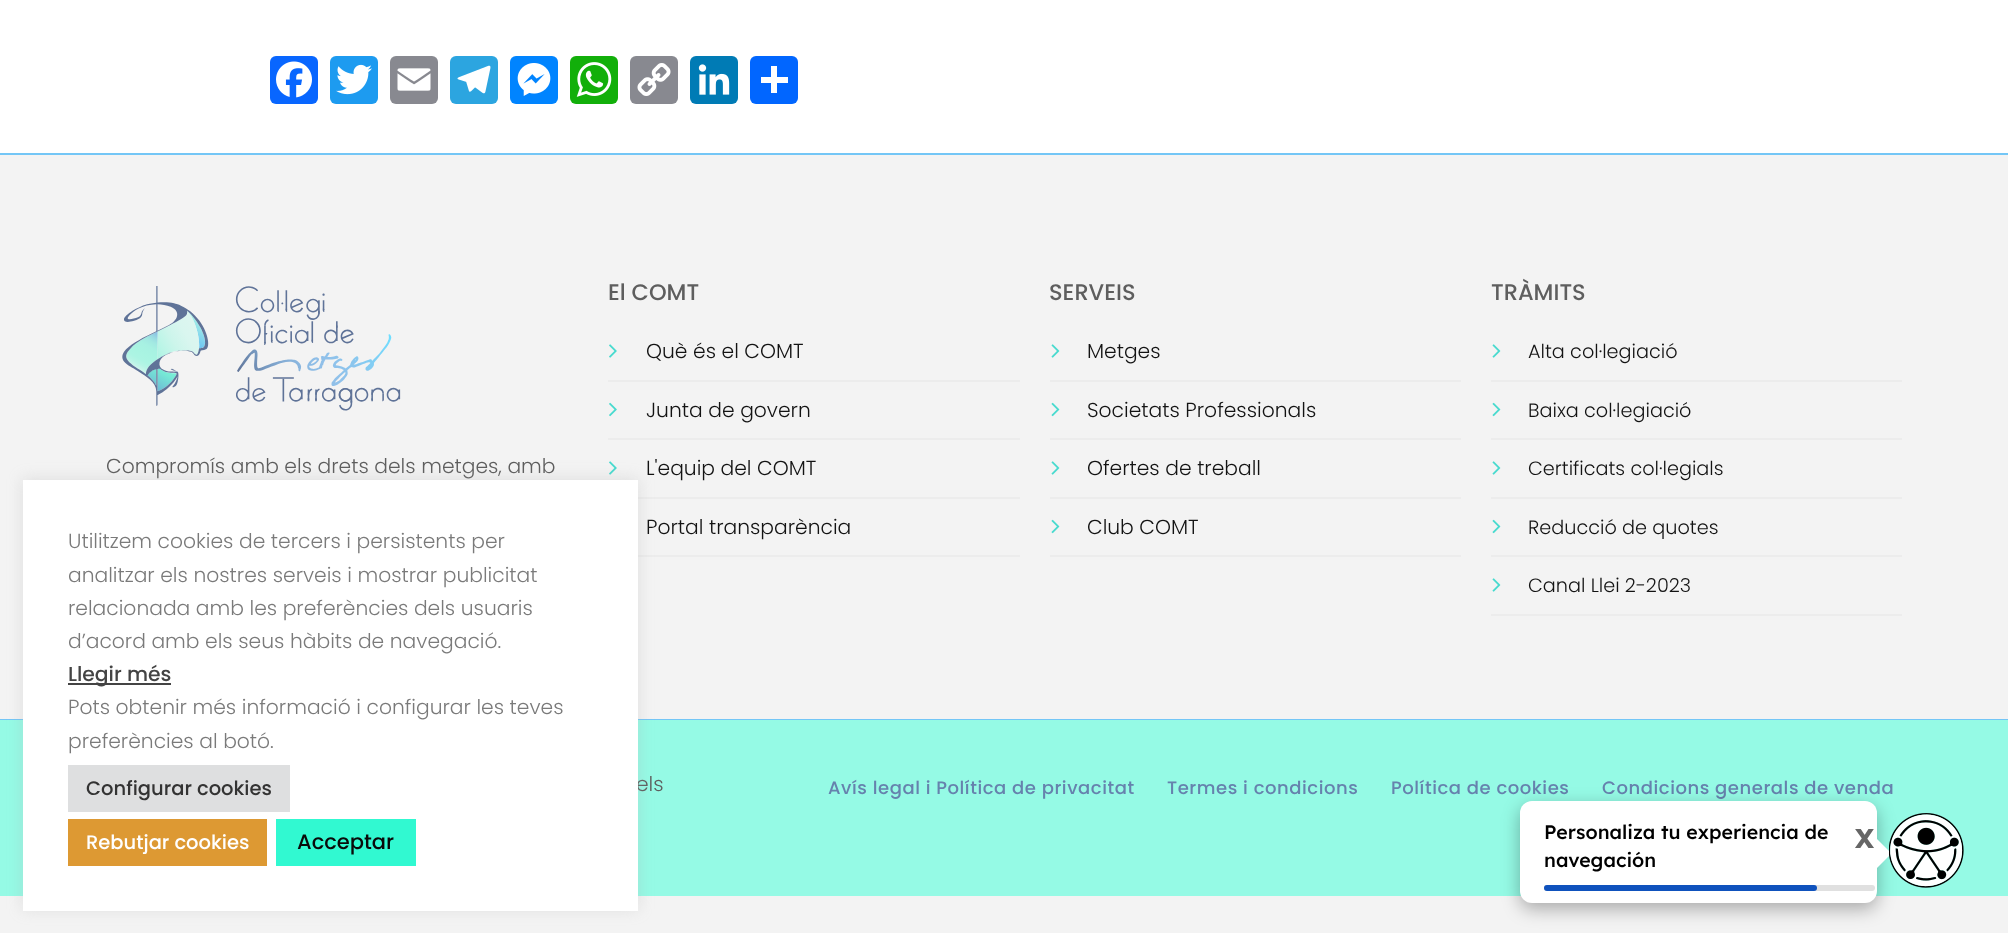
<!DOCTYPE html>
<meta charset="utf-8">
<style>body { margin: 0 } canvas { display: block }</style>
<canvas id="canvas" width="2008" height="933"></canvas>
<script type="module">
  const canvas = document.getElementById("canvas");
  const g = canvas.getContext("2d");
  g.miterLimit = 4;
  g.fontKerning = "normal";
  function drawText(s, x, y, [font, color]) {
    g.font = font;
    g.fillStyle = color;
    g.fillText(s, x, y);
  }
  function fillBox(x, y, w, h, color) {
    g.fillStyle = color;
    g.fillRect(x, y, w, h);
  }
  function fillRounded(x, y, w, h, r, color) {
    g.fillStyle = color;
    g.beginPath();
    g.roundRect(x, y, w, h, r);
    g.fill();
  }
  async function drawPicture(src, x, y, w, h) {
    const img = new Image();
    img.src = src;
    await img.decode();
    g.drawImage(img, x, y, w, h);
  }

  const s1 = ["300 20.3px Poppins", "#5E5E5E"];
  const s2 = ["500 22.5px Poppins", "#5E5E5E"];
  const s3 = ["300 20.3px Poppins", "#131313"];
  const s4 = ["300 19.25px Poppins", "#131313"];
  const s5 = ["500 18px Poppins", "#6682AD"];
  const s6 = ["300 20.3px Poppins", "#7A7A7A"];
  const s7 = ["500 20.3px Poppins", "#444444"];
  const s8 = ["500 19.5px Poppins", "#333333"];
  const s9 = ["500 19.5px Poppins", "#FFFFFF"];
  const s10 = ["500 21px Poppins", "#0A0A0A"];
  const s11 = ["500 19.5px Lexend", "#000000"];
  const s12 = ["bold 27px Lexend", "#666666"];

  fillBox(0, 0, 2008, 933, "#FFFFFF");
  fillRounded(270, 56, 48, 48, 6, "#0866FF");
  await drawPicture("pic1.png", 276, 61, 36, 37);
  fillRounded(330, 56, 48, 48, 6, "#1D9BF0");
  await drawPicture("pic2.png", 336, 64, 36, 31);
  fillRounded(390, 56, 48, 48, 6, "#888990");
  await drawPicture("pic3.png", 397, 68, 34, 23);
  fillRounded(450, 56, 48, 48, 6, "#2CA5E0");
  await drawPicture("pic4.png", 457, 65, 34, 29);
  fillRounded(510, 56, 48, 48, 6, "#0084FF");
  await drawPicture("pic5.png", 517, 63, 34, 33);
  fillRounded(570, 56, 48, 48, 6, "#12AF0A");
  await drawPicture("pic6.png", 576, 62, 36, 35);
  fillRounded(630, 56, 48, 48, 6, "#888990");
  await drawPicture("pic7.png", 637, 63, 34, 33);
  fillRounded(690, 56, 48, 48, 6, "#007BB5");
  await drawPicture("pic8.png", 698, 64, 32, 31);
  fillRounded(750, 56, 48, 48, 6, "#0166FF");
  fillBox(771, 66, 6, 27, "#FFFFFF");
  fillBox(761, 77, 27, 6, "#FFFFFF");
  fillBox(0, 153, 2008, 2, "#73C6F6");
  fillBox(0, 155, 2008, 564, "#F3F3F3");
  await drawPicture("pic9.png", 122, 286, 279, 125);
  drawText("Compromís amb els drets dels metges, amb", 106, 473, s1);
  drawText("El COMT", 608, 300, s2);
  fillBox(608, 380, 412, 2, "#ECECEC");
  await drawPicture("pic10.png", 609, 344, 8, 14);
  drawText("Què és el COMT", 646, 358, s3);
  fillBox(608, 438, 412, 2, "#ECECEC");
  await drawPicture("pic11.png", 609, 402, 8, 15);
  drawText("Junta de govern", 646, 417, s3);
  fillBox(638, 497, 382, 2, "#ECECEC");
  await drawPicture("pic10.png", 609, 461, 8, 14);
  drawText("L'equip del COMT", 646, 475, s3);
  fillBox(638, 555, 382, 2, "#ECECEC");
  drawText("Portal transparència", 646, 534, s3);
  drawText("SERVEIS", 1049, 300, s2);
  fillBox(1050, 380, 411, 2, "#ECECEC");
  await drawPicture("pic12.png", 1051, 344, 9, 14);
  drawText("Metges", 1087, 358, s3);
  fillBox(1050, 438, 411, 2, "#ECECEC");
  await drawPicture("pic13.png", 1051, 402, 9, 15);
  drawText("Societats Professionals", 1087, 417, s3);
  fillBox(1050, 497, 411, 2, "#ECECEC");
  await drawPicture("pic12.png", 1051, 461, 9, 14);
  drawText("Ofertes de treball", 1087, 475, s3);
  fillBox(1050, 555, 411, 2, "#ECECEC");
  await drawPicture("pic13.png", 1051, 519, 9, 15);
  drawText("Club COMT", 1087, 534, s3);
  drawText("TRÀMITS", 1491, 300, s2);
  fillBox(1491, 380, 411, 2, "#ECECEC");
  await drawPicture("pic12.png", 1492, 344, 9, 14);
  drawText("Alta col·legiació", 1528, 358, s4);
  fillBox(1491, 438, 411, 2, "#ECECEC");
  await drawPicture("pic13.png", 1492, 402, 9, 15);
  drawText("Baixa col·legiació", 1528, 417, s4);
  fillBox(1491, 497, 411, 2, "#ECECEC");
  await drawPicture("pic12.png", 1492, 461, 9, 14);
  drawText("Certificats col·legials", 1528, 475, s4);
  fillBox(1491, 555, 411, 2, "#ECECEC");
  await drawPicture("pic13.png", 1492, 519, 9, 15);
  drawText("Reducció de quotes", 1528, 534, s4);
  fillBox(1491, 614, 411, 2, "#ECECEC");
  await drawPicture("pic12.png", 1492, 578, 9, 14);
  drawText("Canal Llei 2-2023", 1528, 592, s4);
  fillBox(0, 719, 2008, 1, "#73C6F6");
  fillBox(0, 720, 2008, 176, "#95FAE5");
  drawText("els", 636, 791, s1);
  g.letterSpacing = "0.55px";
  drawText("Avís legal i Política de privacitat", 828, 794, s5);
  drawText("Termes i condicions", 1167, 794, s5);
  drawText("Política de cookies", 1391, 794, s5);
  drawText("Condicions generals de venda", 1602, 794, s5);
  fillBox(0, 896, 2008, 37, "#F3F3F3");
  g.fillStyle = "rgba(172, 171, 171, 0.3)";
  g.filter = "blur(7.5px)";
  g.beginPath();
  g.rect(23, 479, 615, 430);
  g.fill();
  g.filter = "none";
  fillBox(23, 480, 615, 431, "#FFFFFF");
  g.letterSpacing = "0px";
  drawText("Utilitzem cookies de tercers i persistents per", 68, 548, s6);
  drawText("analitzar els nostres serveis i mostrar publicitat", 68, 582, s6);
  drawText("relacionada amb les preferències dels usuaris", 68, 615, s6);
  drawText("d’acord amb els seus hàbits de navegació.", 68, 648, s6);
  fillBox(68, 683, 103, 2, "#444444");
  drawText("Llegir més", 68, 681, s7);
  drawText("Pots obtenir més informació i configurar les teves", 68, 714, s6);
  drawText("preferències al botó.", 68, 748, s6);
  fillBox(68, 765, 222, 47, "#DEDFE0");
  drawText("Configurar cookies", 86, 795, s8);
  fillBox(68, 819, 199, 47, "#DD9933");
  drawText("Rebutjar cookies", 86, 849, s9);
  fillBox(276, 819, 140, 47, "#31F9D1");
  drawText("Acceptar", 297, 849, s10);
  g.fillStyle = "rgba(0, 0, 0, 0.3)";
  g.filter = "blur(9px)";
  g.beginPath();
  g.roundRect(1520, 807, 357, 102, 12);
  g.fill();
  g.filter = "none";
  fillRounded(1520, 801, 357, 102, 12, "#FFFFFF");
  drawText("Personaliza tu experiencia de", 1544, 839, s11);
  drawText("X", 1855, 848, s12);
  g.fillStyle = "#FFFFFF";
  g.beginPath();
  g.moveTo(1876.5, 868.5);
  g.lineTo(1876.5, 838.5);
  g.lineTo(1891.5, 853.5);
  g.closePath();
  g.fill();
  drawText("navegación", 1544, 867, s11);
  fillRounded(1544, 885, 331, 6, 3, "#E0E0E0");
  fillRounded(1544, 885, 273, 6, 3, "#0F52BD");
  await drawPicture("pic14.png", 1889, 813, 75, 75);
</script>
